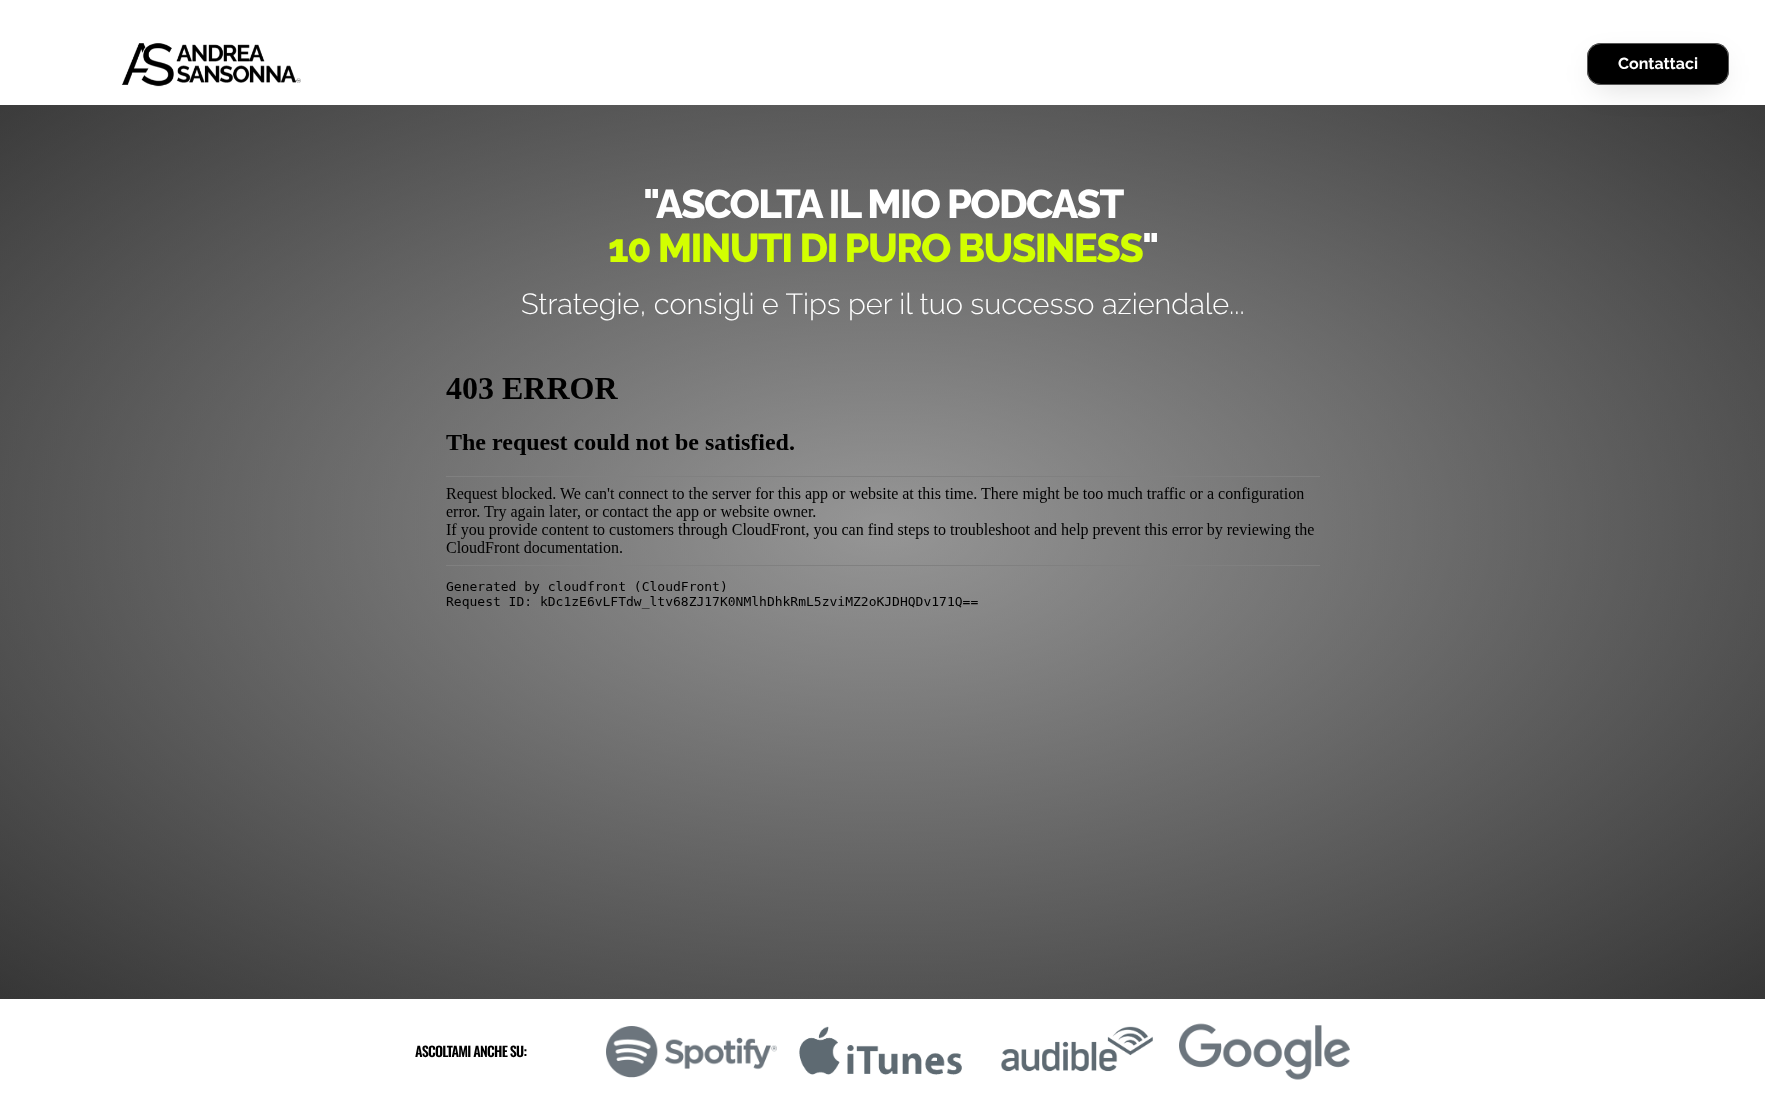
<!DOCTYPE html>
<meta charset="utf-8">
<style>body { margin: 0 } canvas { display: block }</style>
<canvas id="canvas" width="1765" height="1094"></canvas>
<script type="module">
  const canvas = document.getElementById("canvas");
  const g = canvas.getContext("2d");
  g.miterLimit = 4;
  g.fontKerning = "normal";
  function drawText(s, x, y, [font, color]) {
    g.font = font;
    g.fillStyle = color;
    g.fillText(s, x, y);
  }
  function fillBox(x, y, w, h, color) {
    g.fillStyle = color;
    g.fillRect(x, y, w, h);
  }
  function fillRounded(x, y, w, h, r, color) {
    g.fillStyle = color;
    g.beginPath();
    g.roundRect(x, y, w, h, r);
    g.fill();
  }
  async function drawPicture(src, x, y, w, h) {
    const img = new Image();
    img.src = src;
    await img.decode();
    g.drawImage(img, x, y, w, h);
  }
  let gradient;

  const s1 = ["bold 16px Raleway", "#FFFFFF"];
  const s2 = ["800 40px Raleway", "#FFFFFF"];
  const s3 = ["800 40px Raleway", "#D2FF00"];
  const s4 = ["300 29px Raleway", "#FFFFFF"];
  const s5 = ["600 14px Oswald", "#000000"];

  fillBox(0, 0, 1765, 1094, "#FFFFFF");
  await drawPicture("pic1.png", 121, 43, 180, 44);
  gradient = g.createRadialGradient(883, 979.77, 0, 883, 979.77, 1248);
  gradient.addColorStop(0, "#DBDBDB");
  gradient.addColorStop(1, "#393939");
  g.fillStyle = gradient;
  g.beginPath();
  g.rect(0, 105, 1765, 894);
  g.save();
  g.clip();
  g.scale(1, 670 / 1248);
  g.fillRect(0, 0, 1765, 2038);
  g.restore();
  gradient = g.createRadialGradient(883, 979.77, 0, 883, 979.77, 1248);
  gradient.addColorStop(0, "rgba(81, 81, 81, 0.5)");
  gradient.addColorStop(1, "rgba(51, 51, 51, 0.5)");
  g.fillStyle = gradient;
  g.beginPath();
  g.rect(0, 105, 1765, 894);
  g.save();
  g.clip();
  g.scale(1, 670 / 1248);
  g.fillRect(0, 0, 1765, 2038);
  g.restore();
  g.fillStyle = "rgba(0, 0, 0, 0.16)";
  g.filter = "blur(15px)";
  g.beginPath();
  g.roundRect(1596, 62, 124, 24, 5);
  g.fill();
  g.filter = "none";
  fillRounded(1587, 43, 142, 42, 14, "#000000");
  g.beginPath();
  g.roundRect(1587.5, 43.5, 141, 41, 13.5);
  g.strokeStyle = "rgba(255, 255, 255, 0.34)";
  g.stroke();
  drawText("Contattaci", 1618, 69, s1);
  g.letterSpacing = "-1.6px";
  drawText("\"ASCOLTA IL MIO PODCAST", 643, 218, s2);
  drawText("10 MINUTI DI PURO BUSINESS", 608, 262, s3);
  drawText("\"", 1142, 262, s2);
  g.letterSpacing = "0px";
  drawText("Strategie, consigli e Tips per il tuo successo aziendale...", 521, 314, s4);
  await drawPicture("pic2.png", 446, 378, 874, 231);
  g.letterSpacing = "-0.75px";
  drawText("ASCOLTAMI ANCHE SU:", 415, 1057, s5);
  await drawPicture("pic3.png", 606, 1026, 171, 52);
  await drawPicture("pic4.png", 799, 1026, 163, 49);
  await drawPicture("pic5.png", 1001, 1026, 152, 46);
  await drawPicture("pic6.png", 1179, 1023, 171, 57);
</script>
